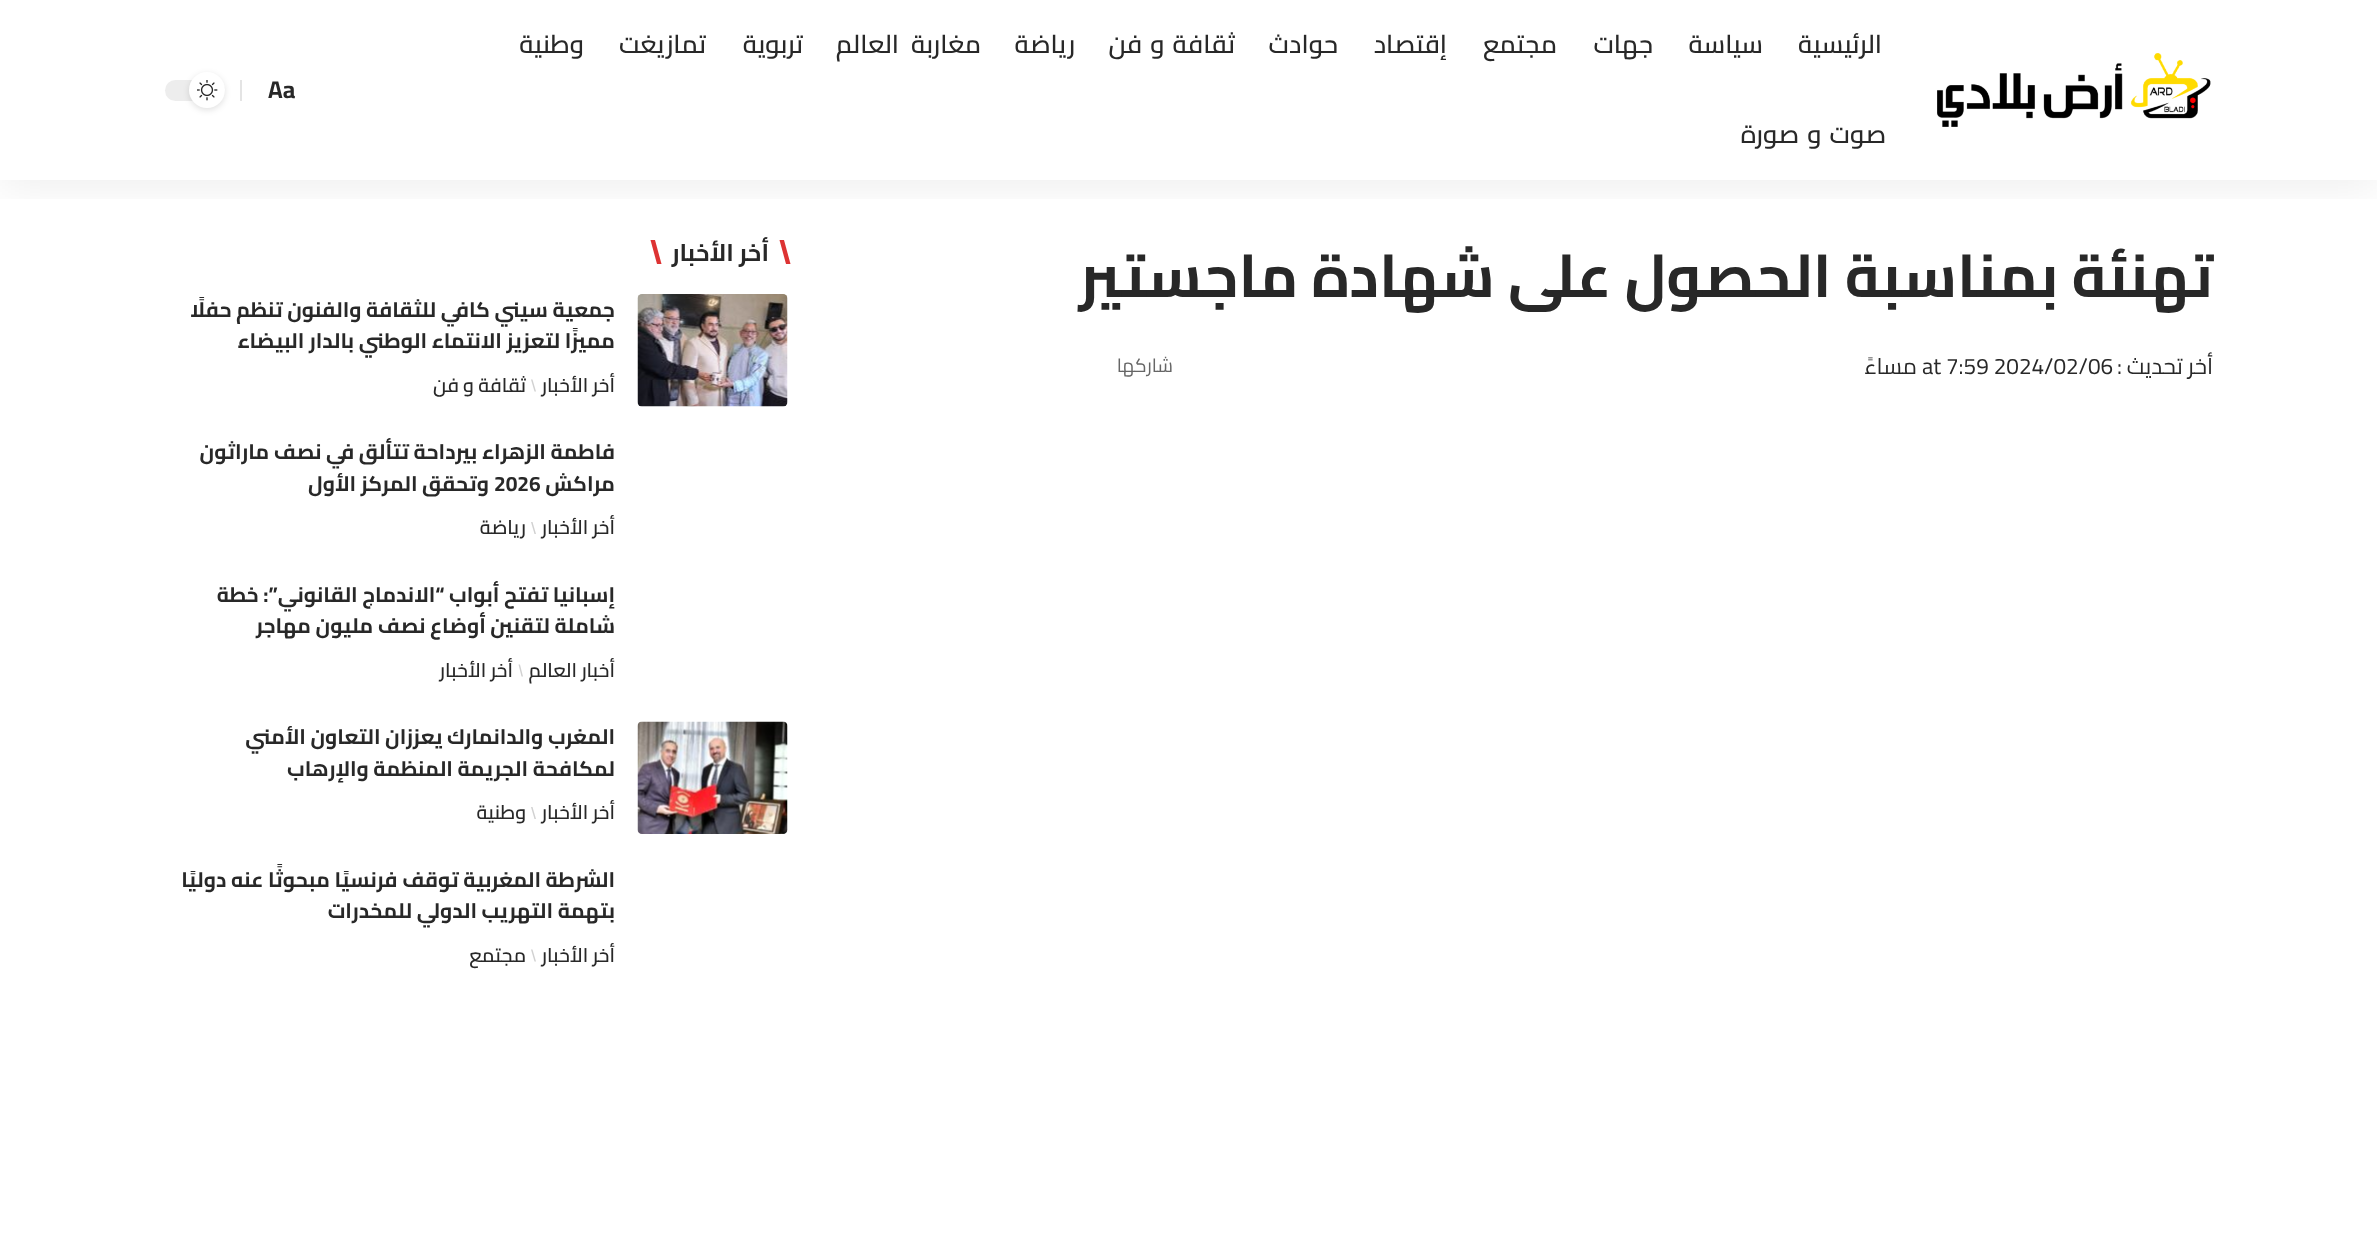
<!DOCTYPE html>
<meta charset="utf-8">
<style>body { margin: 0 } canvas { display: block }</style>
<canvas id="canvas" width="2377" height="1255"></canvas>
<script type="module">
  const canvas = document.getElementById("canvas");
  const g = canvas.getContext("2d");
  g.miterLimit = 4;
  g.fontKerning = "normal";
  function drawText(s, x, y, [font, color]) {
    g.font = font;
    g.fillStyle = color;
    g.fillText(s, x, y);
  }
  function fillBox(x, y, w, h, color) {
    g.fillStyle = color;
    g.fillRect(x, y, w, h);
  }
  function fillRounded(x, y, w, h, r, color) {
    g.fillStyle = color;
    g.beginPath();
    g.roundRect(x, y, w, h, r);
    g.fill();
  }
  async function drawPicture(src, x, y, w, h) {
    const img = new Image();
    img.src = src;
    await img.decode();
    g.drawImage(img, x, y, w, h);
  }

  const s1 = ["600 25.5px Cairo", "#282828"];
  const s2 = ["bold 24px Cairo", "#282828"];
  const s3 = ["bold 60px Cairo", "#282828"];
  const s4 = ["22.5px Cairo", "#282828"];
  const s5 = ["19px Cairo", "#666666"];
  const s6 = ["bold 21px Cairo", "#282828"];
  const s7 = ["600 19.5px Cairo", "#282828"];

  fillBox(0, 0, 2377, 1255, "#FFFFFF");
  g.fillStyle = "#DD3333";
  g.beginPath();
  g.moveTo(779.5, 240);
  g.lineTo(784, 240);
  g.lineTo(790.5, 264);
  g.lineTo(786, 264);
  g.closePath();
  g.fill();
  g.beginPath();
  g.moveTo(650.5, 240);
  g.lineTo(655, 240);
  g.lineTo(661.5, 264);
  g.lineTo(657, 264);
  g.closePath();
  g.fill();
  g.save();
  g.beginPath();
  g.rect(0, 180, 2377, 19);
  g.clip();
  g.fillStyle = "rgba(0, 0, 0, 0.07)";
  g.filter = "blur(22.5px)";
  g.beginPath();
  g.rect(0, 6, 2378, 180);
  g.fill();
  g.filter = "none";
  g.restore();
  await drawPicture("pic1.png", 1937, 53, 274, 74);
  g.letterSpacing = "-0.5px";
  g.direction = "rtl";
  drawText("الرئيسية", 1882, 53, s1);
  drawText("سياسة", 1763, 53, s1);
  drawText("جهات", 1653, 53, s1);
  drawText("مجتمع", 1557, 53, s1);
  drawText("إقتصاد", 1447, 53, s1);
  drawText("حوادث", 1338, 53, s1);
  g.wordSpacing = "3px";
  drawText("ثقافة و فن", 1235, 53, s1);
  g.wordSpacing = "0px";
  drawText("رياضة", 1075, 53, s1);
  g.wordSpacing = "7px";
  drawText("مغاربة العالم", 981, 53, s1);
  g.wordSpacing = "0px";
  drawText("تربوية", 803, 53, s1);
  drawText("تمازيغت", 706, 53, s1);
  drawText("وطنية", 584, 53, s1);
  g.wordSpacing = "3px";
  drawText("صوت و صورة", 1886, 143, s1);
  g.letterSpacing = "0px";
  g.wordSpacing = "0px";
  g.direction = "ltr";
  drawText("Aa", 268, 98, s2);
  fillBox(240, 80, 2, 21, "#E4E4E4");
  fillRounded(165, 80, 60, 21, 10.5, "#EDEDED");
  g.fillStyle = "rgba(0, 0, 0, 0.12)";
  g.filter = "blur(3px)";
  g.beginPath();
  g.roundRect(189, 74, 36, 36, 18);
  g.fill();
  g.filter = "none";
  g.fillStyle = "#FFFFFF";
  g.beginPath();
  g.arc(207, 90, 18, 0, Math.PI * 2);
  g.fill();
  await drawPicture("pic2.png", 197, 80, 21, 21);
  g.direction = "rtl";
  drawText("تهنئة بمناسبة الحصول على شهادة ماجستير", 2213, 297, s3);
  drawText("أخر تحديث :", 2213, 374, s4);
  g.direction = "ltr";
  drawText("at 7:59 2024/02/06", 1922, 374, s4);
  g.direction = "rtl";
  drawText("مساءً", 1917, 374, s4);
  drawText("شاركها", 1173, 372, s5);
  drawText("أخر الأخبار", 769, 261, s2);
  await drawPicture("pic3.png", 637, 294, 151, 113);
  drawText("جمعية سيني كافي للثقافة والفنون تنظم حفلًا", 615, 317, s6);
  drawText("مميزًا لتعزيز الانتماء الوطني بالدار البيضاء", 615, 348, s6);
  drawText("أخر الأخبار", 615, 392, s7);
  g.fillStyle = "#D1D1D1";
  g.beginPath();
  g.moveTo(531, 379.5);
  g.lineTo(532.5, 379.5);
  g.lineTo(536, 391.5);
  g.lineTo(534.5, 391.5);
  g.closePath();
  g.fill();
  drawText("ثقافة و فن", 526, 392, s7);
  drawText("فاطمة الزهراء بيرداحة تتألق في نصف ماراثون", 615, 459, s6);
  drawText("مراكش", 615, 491, s6);
  g.direction = "ltr";
  drawText("2026", 494, 491, s6);
  g.direction = "rtl";
  drawText("وتحقق المركز الأول", 489, 491, s6);
  drawText("أخر الأخبار", 615, 534, s7);
  g.fillStyle = "#D1D1D1";
  g.beginPath();
  g.moveTo(531, 522);
  g.lineTo(532.5, 522);
  g.lineTo(536, 534);
  g.lineTo(534.5, 534);
  g.closePath();
  g.fill();
  drawText("رياضة", 526, 534, s7);
  drawText("إسبانيا تفتح أبواب “الاندماج القانوني”: خطة", 615, 602, s6);
  drawText("شاملة لتقنين أوضاع نصف مليون مهاجر", 615, 633, s6);
  drawText("أخبار العالم", 615, 677, s7);
  g.fillStyle = "#D1D1D1";
  g.beginPath();
  g.moveTo(518.5, 664.5);
  g.lineTo(520, 664.5);
  g.lineTo(523, 676.5);
  g.lineTo(521.5, 676.5);
  g.closePath();
  g.fill();
  drawText("أخر الأخبار", 513, 677, s7);
  await drawPicture("pic4.png", 637, 721, 151, 113);
  drawText("المغرب والدانمارك يعززان التعاون الأمني", 615, 744, s6);
  drawText("لمكافحة الجريمة المنظمة والإرهاب", 615, 776, s6);
  drawText("أخر الأخبار", 615, 819, s7);
  g.fillStyle = "#D1D1D1";
  g.beginPath();
  g.moveTo(531, 807);
  g.lineTo(532.5, 807);
  g.lineTo(536, 819);
  g.lineTo(534.5, 819);
  g.closePath();
  g.fill();
  drawText("وطنية", 526, 819, s7);
  drawText("الشرطة المغربية توقف فرنسيًا مبحوثًا عنه دوليًا", 615, 887, s6);
  drawText("بتهمة التهريب الدولي للمخدرات", 615, 918, s6);
  drawText("أخر الأخبار", 615, 962, s7);
  g.fillStyle = "#D1D1D1";
  g.beginPath();
  g.moveTo(531, 949.5);
  g.lineTo(532.5, 949.5);
  g.lineTo(536, 961.5);
  g.lineTo(534.5, 961.5);
  g.closePath();
  g.fill();
  drawText("مجتمع", 526, 962, s7);
</script>
